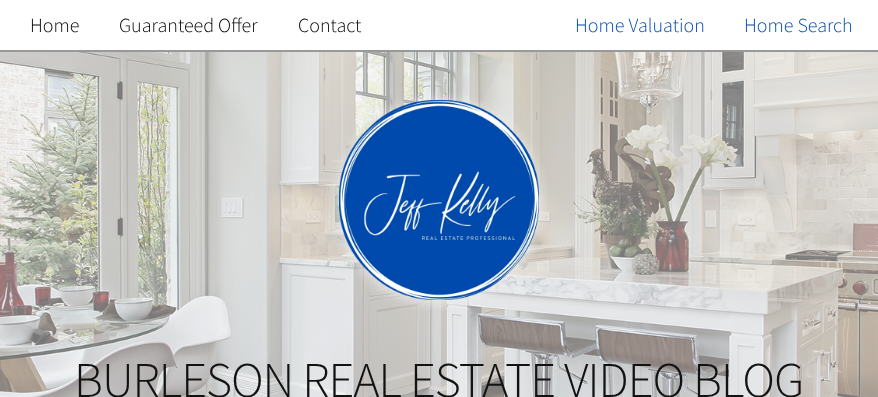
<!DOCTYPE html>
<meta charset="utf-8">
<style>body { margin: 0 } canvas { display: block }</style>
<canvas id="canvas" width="878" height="397"></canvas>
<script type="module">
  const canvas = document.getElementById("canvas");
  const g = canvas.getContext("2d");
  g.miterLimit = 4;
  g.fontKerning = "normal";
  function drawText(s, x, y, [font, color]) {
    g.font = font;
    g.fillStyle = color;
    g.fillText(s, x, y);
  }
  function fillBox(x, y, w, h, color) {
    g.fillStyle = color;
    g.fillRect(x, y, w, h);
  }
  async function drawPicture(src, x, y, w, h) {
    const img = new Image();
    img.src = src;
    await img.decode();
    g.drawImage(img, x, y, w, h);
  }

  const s1 = ["300 20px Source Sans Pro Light", "#000000"];
  const s2 = ["300 20px Source Sans Pro Light", "#004AAD"];
  const s3 = ["300 50px Source Sans Pro Light", "#121212"];

  fillBox(0, 0, 878, 397, "#FFFFFF");
  fillBox(0, 50, 878, 2, "#999999");
  drawText("Home", 30, 32, s1);
  drawText("Guaranteed Offer", 119, 32, s1);
  drawText("Contact", 298, 32, s1);
  drawText("Home Valuation", 575, 32, s2);
  drawText("Home Search", 744, 32, s2);
  await drawPicture("pic1.png", 0, 52, 878, 345);
  await drawPicture("pic2.png", 330, 91, 218, 220);
  g.letterSpacing = "-1px";
  drawText("BURLESON REAL ESTATE VIDEO BLOG", 74, 397, s3);
</script>
